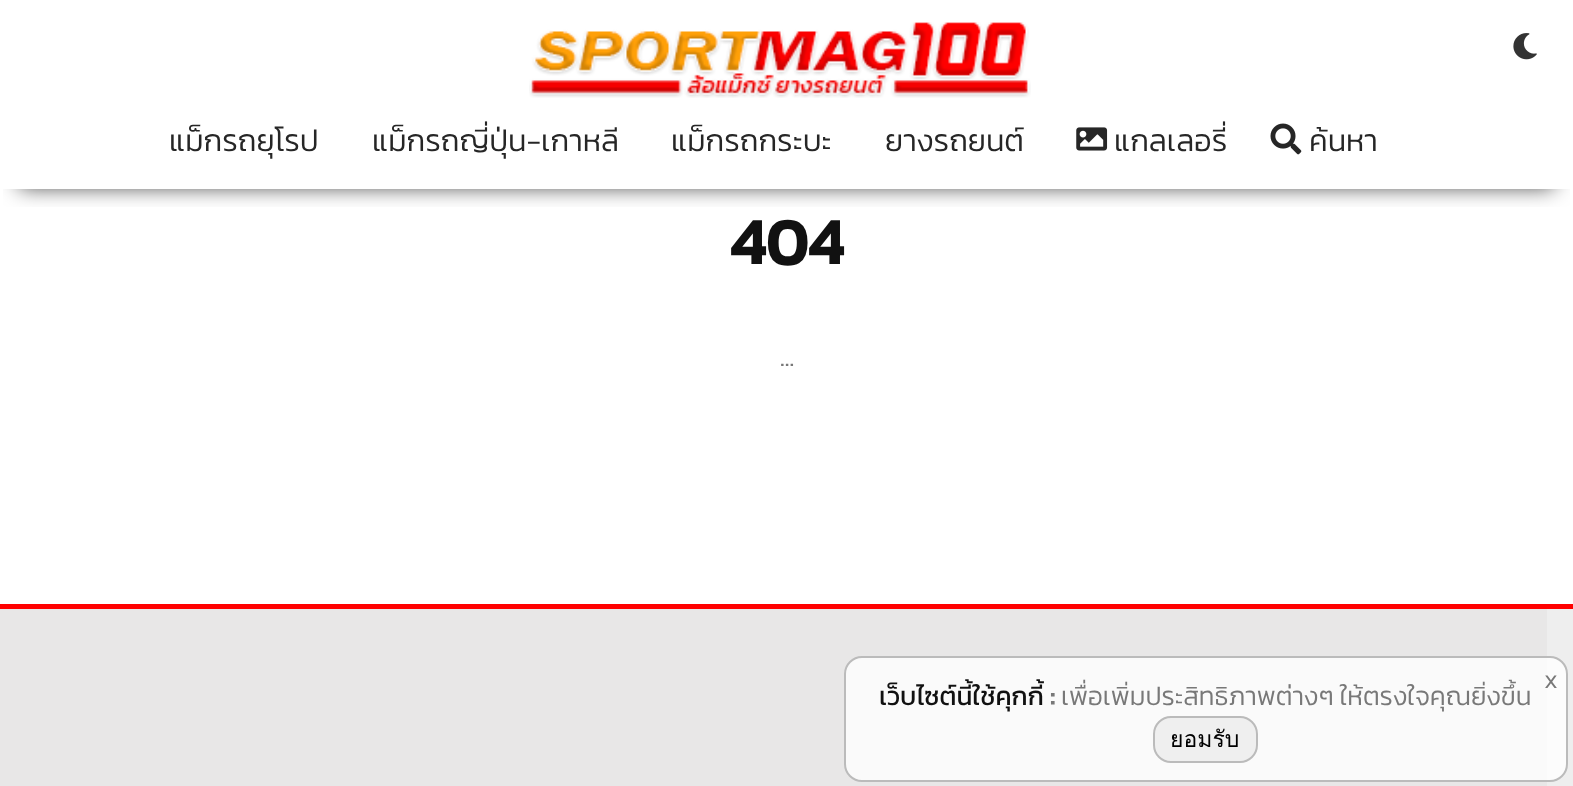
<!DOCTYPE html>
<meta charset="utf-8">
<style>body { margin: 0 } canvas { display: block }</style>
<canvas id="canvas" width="1573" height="786"></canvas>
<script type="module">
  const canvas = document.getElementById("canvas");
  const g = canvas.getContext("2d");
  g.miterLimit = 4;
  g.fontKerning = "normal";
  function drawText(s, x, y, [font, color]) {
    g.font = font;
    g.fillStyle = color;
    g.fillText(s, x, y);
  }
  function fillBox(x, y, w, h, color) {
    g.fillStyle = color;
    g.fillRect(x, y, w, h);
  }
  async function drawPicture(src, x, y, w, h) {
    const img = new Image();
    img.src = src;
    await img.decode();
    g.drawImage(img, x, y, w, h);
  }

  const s1 = ["300 30.75px Kanit", "#262626"];
  const s2 = ["bold 65px Kanit", "#111111"];
  const s3 = ["26.25px Kanit", "#787878"];
  const s4 = ["26.25px Kanit", "#111111"];
  const s5 = ["bold 26.25px Kanit", "#787878"];
  const s6 = ["300 26.25px Kanit", "#787878"];
  const s7 = ["23px Loma", "#000000"];

  fillBox(0, 0, 1573, 786, "#FFFFFF");
  g.save();
  g.beginPath();
  g.rect(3, 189, 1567, 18);
  g.clip();
  g.fillStyle = "rgba(0, 0, 0, 0.75)";
  g.filter = "blur(10.5px)";
  g.beginPath();
  g.rect(19, 37, 1535, 150);
  g.fill();
  g.filter = "none";
  g.restore();
  await drawPicture("pic1.png", 1513, 33, 24, 27);
  await drawPicture("pic2.png", 529, 22, 502, 76);
  drawText("แม็กรถยุโรป", 169, 151, s1);
  drawText("แม็กรถญี่ปุ่น-เกาหลี", 372, 151, s1);
  drawText("แม็กรถกระบะ", 671, 151, s1);
  drawText("ยางรถยนต์", 885, 151, s1);
  await drawPicture("pic3.png", 1076, 127, 32, 24);
  drawText("แกลเลอรี่", 1114, 151, s1);
  await drawPicture("pic4.png", 1270, 123, 32, 32);
  drawText("ค้นหา", 1309, 151, s1);
  drawText("404", 730, 264, s2);
  drawText("...", 780, 366, s3);
  fillBox(1547, 609, 26, 177, "#EEEEEE");
  fillBox(0, 604, 1573, 5, "#FF0000");
  fillBox(0, 609, 1547, 177, "#E8E7E7");
  g.fillStyle = "rgba(255, 255, 255, 0.79)";
  g.beginPath();
  g.roundRect(845, 657, 722, 124, 17);
  g.fill();
  g.strokeStyle = "#BBBBBB";
  g.lineWidth = 2;
  g.stroke();
  drawText("เว็บไซต์นี้ใช้คุกกี้", 879, 705, s4);
  drawText(":", 1050, 705, s5);
  drawText("เพื่อเพิ่มประสิทธิภาพต่างๆ ให้ตรงใจคุณยิ่งขึ้น", 1061, 705, s6);
  drawText("x", 1544, 688, s6);
  g.fillStyle = "#EFEFEF";
  g.beginPath();
  g.roundRect(1154, 717, 103, 45, 17);
  g.fill();
  g.stroke();
  drawText("ยอมรับ", 1170, 747, s7);
</script>
